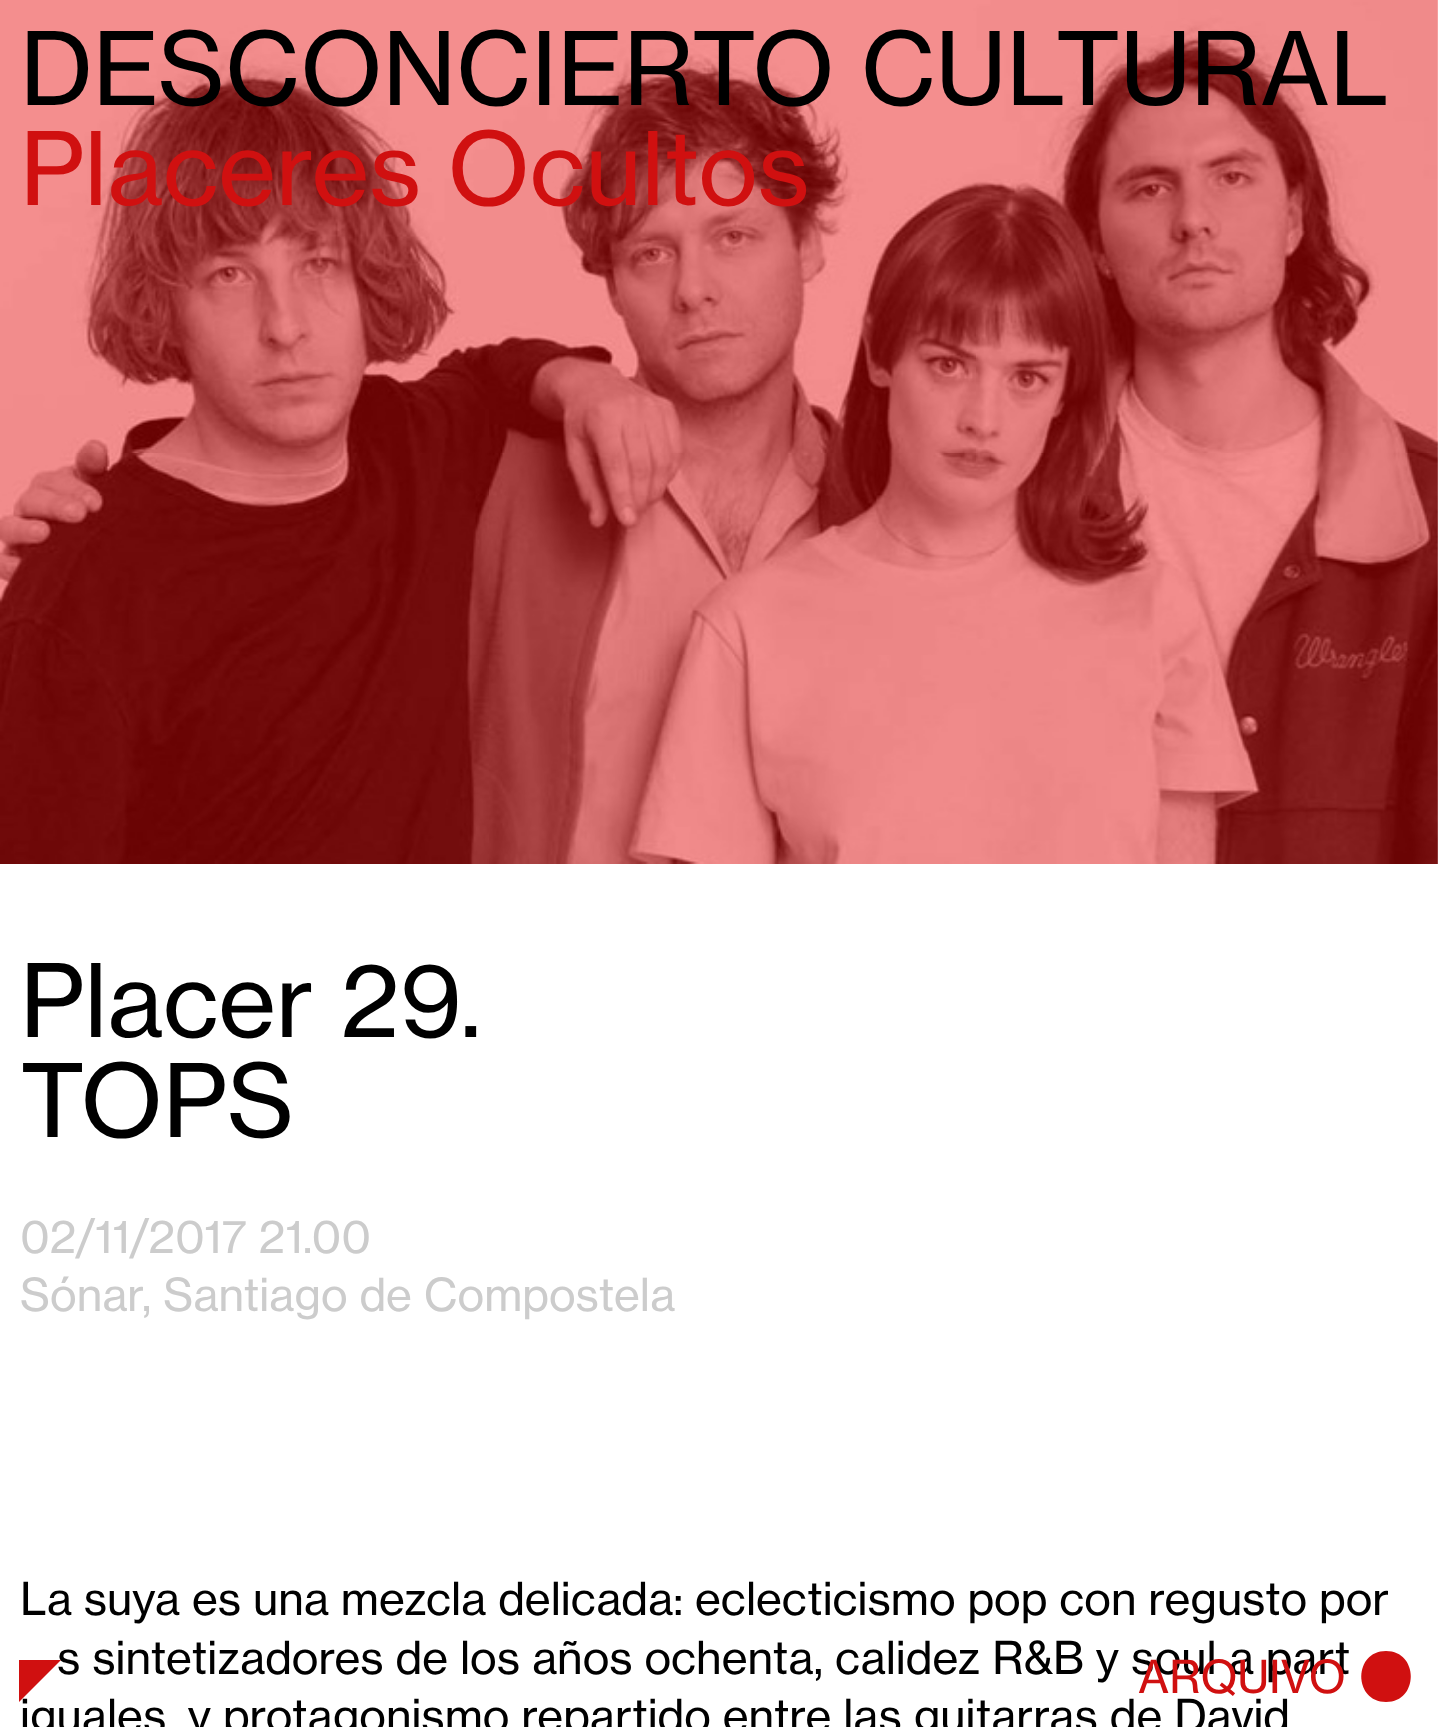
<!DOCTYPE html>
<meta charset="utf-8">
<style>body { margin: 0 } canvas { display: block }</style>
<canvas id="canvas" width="1438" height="1727"></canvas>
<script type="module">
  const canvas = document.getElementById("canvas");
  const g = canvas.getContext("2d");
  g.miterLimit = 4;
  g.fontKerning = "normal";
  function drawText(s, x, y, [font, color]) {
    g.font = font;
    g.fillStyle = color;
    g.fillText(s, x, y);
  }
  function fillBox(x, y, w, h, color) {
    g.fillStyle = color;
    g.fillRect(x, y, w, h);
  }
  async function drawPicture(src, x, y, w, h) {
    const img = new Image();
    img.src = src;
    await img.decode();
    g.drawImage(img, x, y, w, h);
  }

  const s1 = ["99.5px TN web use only", "#000000"];
  const s2 = ["99.5px TN web use only", "#D01010"];
  const s3 = ["44.75px TN web use only", "#CCCCCC"];
  const s4 = ["44.75px TN web use only", "#000000"];
  const s5 = ["44.75px TN web use only", "#D01010"];

  fillBox(0, 0, 1438, 1727, "#FFFFFF");
  await drawPicture("pic1.png", 0, 0, 1438, 864);
  drawText("DESCONCIERTO CULTURAL", 20, 105, s1);
  drawText("Placeres Ocultos", 20, 205, s2);
  drawText("Placer 29.", 20, 1037, s1);
  drawText("TOPS", 20, 1137, s1);
  drawText("02/11/2017 21.00", 20, 1253, s3);
  drawText("Sónar, Santiago de Compostela", 20, 1311, s3);
  drawText("La suya es una mezcla delicada: eclecticismo pop con regusto por", 20, 1615, s4);
  drawText("s sintetizadores de los años ochenta, calidez R&B y soul a part", 57, 1674, s4);
  drawText("iguales, y protagonismo repartido entre las guitarras de David", 20, 1732, s4);
  g.fillStyle = "#D01010";
  g.beginPath();
  g.moveTo(19, 1660);
  g.lineTo(19, 1702);
  g.lineTo(61, 1660);
  g.closePath();
  g.fill();
  drawText("ARQUIVO", 1138, 1693, s5);
  g.beginPath();
  g.moveTo(1386, 1702);
  g.bezierCurveTo(1419, 1702, 1419, 1651, 1386, 1651);
  g.bezierCurveTo(1353, 1651, 1353, 1702, 1386, 1702);
  g.closePath();
  g.fill();
</script>
